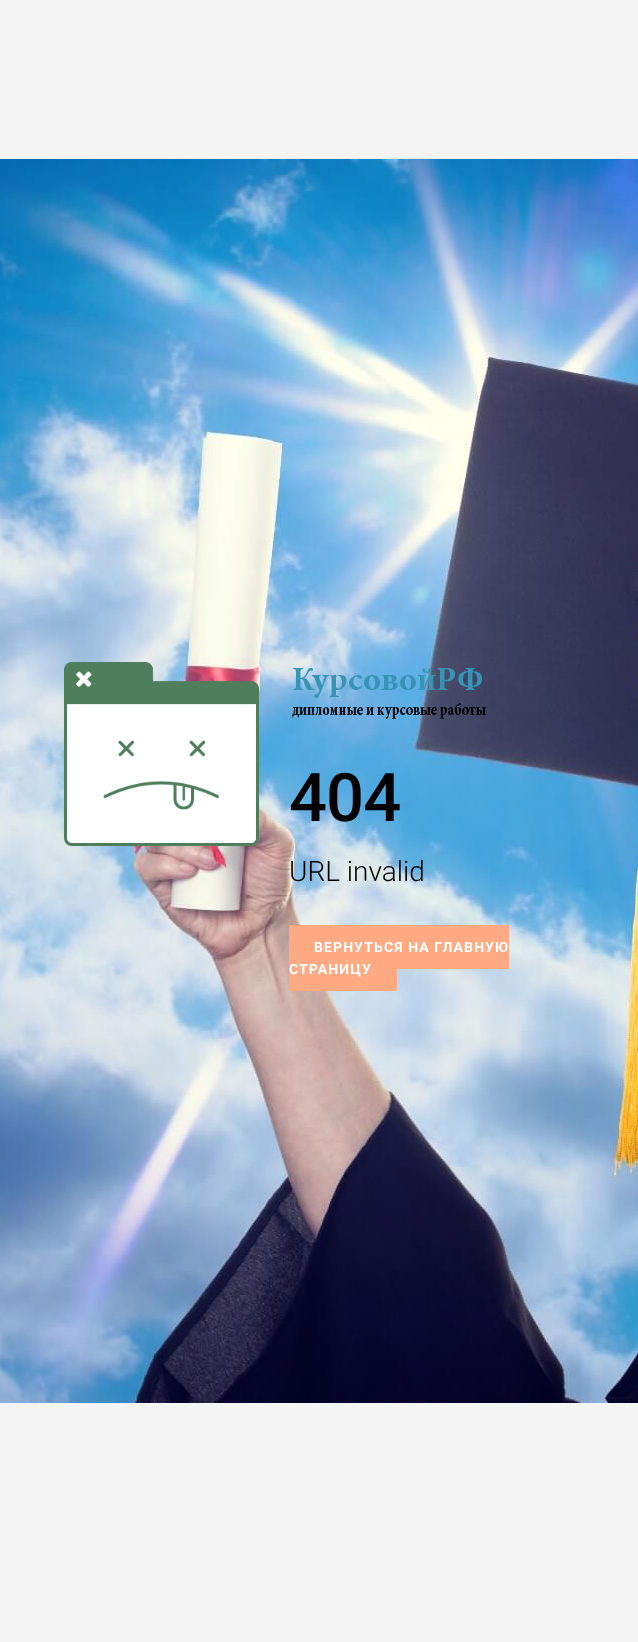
<!DOCTYPE html>
<meta charset="utf-8">
<style>body { margin: 0 } canvas { display: block }</style>
<canvas id="canvas" width="638" height="1642"></canvas>
<script type="module">
  const canvas = document.getElementById("canvas");
  const g = canvas.getContext("2d");
  g.miterLimit = 4;
  g.fontKerning = "normal";
  function drawText(s, x, y, [font, color]) {
    g.font = font;
    g.fillStyle = color;
    g.fillText(s, x, y);
  }
  function fillBox(x, y, w, h, color) {
    g.fillStyle = color;
    g.fillRect(x, y, w, h);
  }
  async function drawPicture(src, x, y, w, h) {
    const img = new Image();
    img.src = src;
    await img.decode();
    g.drawImage(img, x, y, w, h);
  }

  const s1 = ["500 67px Roboto", "#000000"];
  const s2 = ["300 28px Roboto", "#000000"];
  const s3 = ["bold 14px Roboto", "#FFFFFF"];

  fillBox(0, 0, 638, 1642, "#F4F4F4");
  await drawPicture("pic1.png", 0, 159, 638, 1244);
  await drawPicture("pic2.png", 64, 662, 195, 184);
  await drawPicture("pic3.png", 292, 668, 194, 51);
  g.letterSpacing = "-1px";
  drawText("404", 289, 821, s1);
  g.letterSpacing = "0px";
  drawText("URL invalid", 289, 881, s2);
  g.fillStyle = "#FFAA82";
  g.beginPath();
  g.roundRect(289, 925, 220, 44, [2, 0, 0, 2]);
  g.fill();
  g.beginPath();
  g.roundRect(289, 947, 108, 44, [0, 2, 2, 0]);
  g.fill();
  g.letterSpacing = "1.1px";
  drawText("ВЕРНУТЬСЯ НА ГЛАВНУЮ", 314, 952, s3);
  drawText("СТРАНИЦУ", 289, 974, s3);
</script>
